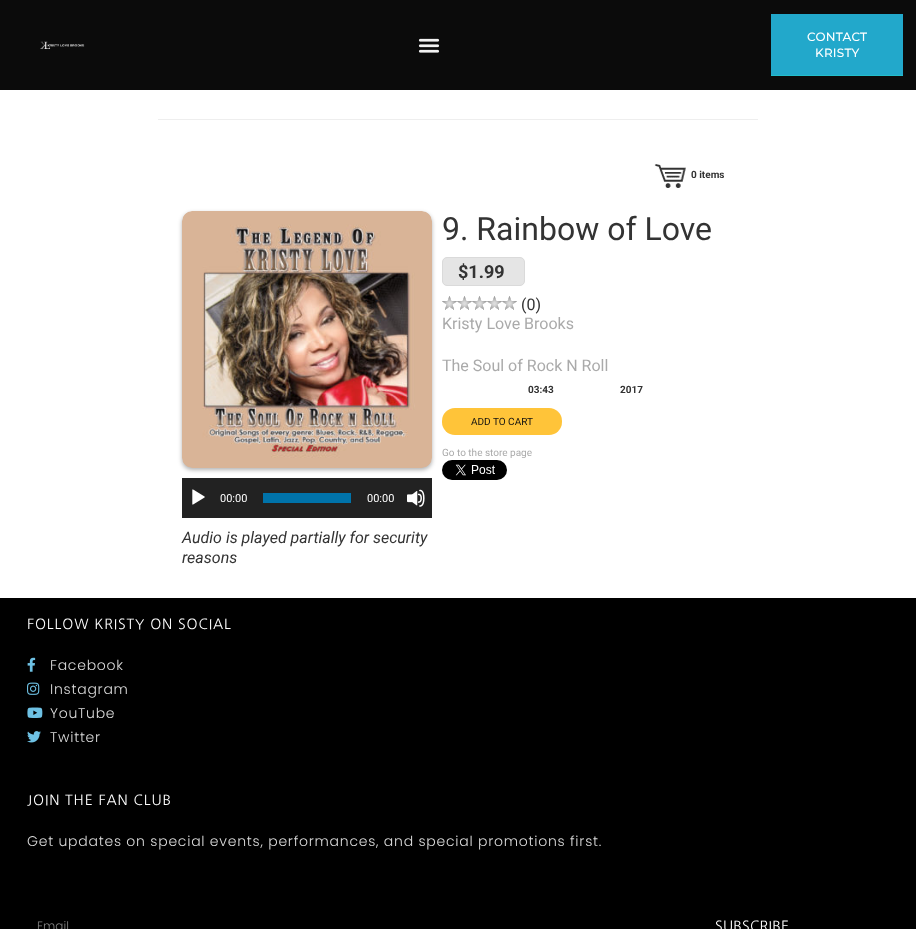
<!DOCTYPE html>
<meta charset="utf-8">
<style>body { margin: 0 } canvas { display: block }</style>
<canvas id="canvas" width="916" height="929"></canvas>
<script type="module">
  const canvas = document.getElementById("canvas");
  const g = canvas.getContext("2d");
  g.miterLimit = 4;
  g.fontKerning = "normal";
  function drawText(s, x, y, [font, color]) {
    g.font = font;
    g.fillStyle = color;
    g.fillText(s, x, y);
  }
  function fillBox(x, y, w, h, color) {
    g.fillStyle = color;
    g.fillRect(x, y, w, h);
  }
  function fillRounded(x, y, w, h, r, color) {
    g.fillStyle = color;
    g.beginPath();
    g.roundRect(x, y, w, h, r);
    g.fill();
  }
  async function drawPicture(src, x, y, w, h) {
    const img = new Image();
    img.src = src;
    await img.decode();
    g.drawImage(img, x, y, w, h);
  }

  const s1 = ["500 12px Montserrat", "#FFFFFF"];
  const s2 = ["bold 10px Roboto", "#333333"];
  const s3 = ["32px Roboto", "#333333"];
  const s4 = ["bold 18px Roboto", "#333333"];
  const s5 = ["16px Roboto", "#333333"];
  const s6 = ["16px Roboto", "#AAAAAA"];
  const s7 = ["10px Roboto", "#111111"];
  const s8 = ["10px Roboto", "#AAAAAA"];
  const s9 = ["11px Roboto", "#FFFFFF"];
  const s10 = ["italic 16px Roboto", "#333333"];
  const s11 = ["14px NanumGothic", "#FFFFFF"];
  const s12 = ["300 14px Poppins", "#DADADA"];
  const s13 = ["300 12px Poppins", "#838383"];

  fillBox(0, 0, 916, 929, "#FFFFFF");
  fillBox(0, 0, 916, 90, "#0B0B0B");
  await drawPicture("pic1.png", 40, 41, 45, 8);
  await drawPicture("pic2.png", 418, 38, 22, 15);
  fillBox(771, 14, 132, 61, "#22A8CB");
  fillBox(771, 75, 132, 1, "#22BECB");
  g.letterSpacing = "0.25px";
  drawText("CONTACT", 807, 41, s1);
  drawText("KRISTY", 815, 57, s1);
  fillBox(158, 119, 600, 1, "#EEEEEE");
  await drawPicture("pic3.png", 654, 164, 32, 24);
  g.letterSpacing = "0px";
  drawText("0 items", 691, 178, s2);
  drawText("9. Rainbow of Love", 442, 240, s3);
  g.fillStyle = "#E5E5E5";
  g.beginPath();
  g.roundRect(442.5, 257.5, 82, 28, 4.5);
  g.fill();
  g.strokeStyle = "#DADADA";
  g.stroke();
  drawText("$1.99", 458, 278, s4);
  await drawPicture("pic4.png", 442, 296, 15, 14);
  await drawPicture("pic4.png", 457, 296, 15, 14);
  await drawPicture("pic4.png", 472, 296, 15, 14);
  await drawPicture("pic4.png", 487, 296, 15, 14);
  await drawPicture("pic4.png", 502, 296, 15, 14);
  drawText("(0)", 521, 310, s5);
  drawText("Kristy Love Brooks", 442, 329, s6);
  drawText("The Soul of Rock N Roll", 442, 371, s6);
  drawText("03:43", 528, 393, s2);
  drawText("2017", 620, 393, s2);
  fillRounded(442, 408, 120, 27, 13, "#FFC439");
  drawText("ADD TO CART", 471, 425, s7);
  drawText("Go to the store page", 442, 456, s8);
  await drawPicture("pic5.png", 442, 460, 65, 20);
  g.fillStyle = "rgba(0, 0, 0, 0.3)";
  g.filter = "blur(2px)";
  g.beginPath();
  g.roundRect(182, 213, 250, 257, 10);
  g.fill();
  g.filter = "none";
  await drawPicture("pic6.png", 182, 211, 250, 257);
  fillBox(182, 478, 250, 40, "#222222");
  await drawPicture("pic7.png", 192, 489, 13, 16);
  drawText("00:00", 220, 502, s9);
  fillBox(263, 493, 88, 10, "#0073AA");
  drawText("00:00", 367, 502, s9);
  await drawPicture("pic8.png", 407, 489, 18, 18);
  drawText("Audio is played partially for security", 182, 543, s10);
  drawText("reasons", 182, 563, s10);
  fillBox(0, 598, 916, 331, "#000000");
  g.letterSpacing = "0.9px";
  drawText("FOLLOW KRISTY ON SOCIAL", 27, 629, s11);
  await drawPicture("pic9.png", 27, 657, 9, 15);
  g.letterSpacing = "0.75px";
  drawText("Facebook", 50, 670, s12);
  await drawPicture("pic10.png", 27, 682, 13, 13);
  drawText("Instagram", 50, 694, s12);
  await drawPicture("pic11.png", 27, 707, 16, 11);
  drawText("YouTube", 50, 718, s12);
  await drawPicture("pic12.png", 27, 731, 14, 12);
  drawText("Twitter", 50, 742, s12);
  g.letterSpacing = "0.9px";
  drawText("JOIN THE FAN CLUB", 27, 805, s11);
  g.letterSpacing = "0.75px";
  drawText("Get updates on special events, performances, and special promotions first.", 27, 846, s12);
  g.letterSpacing = "0px";
  drawText("Email", 37, 930, s13);
  g.letterSpacing = "0.25px";
  drawText("SUBSCRIBE", 715, 931, s11);
</script>
